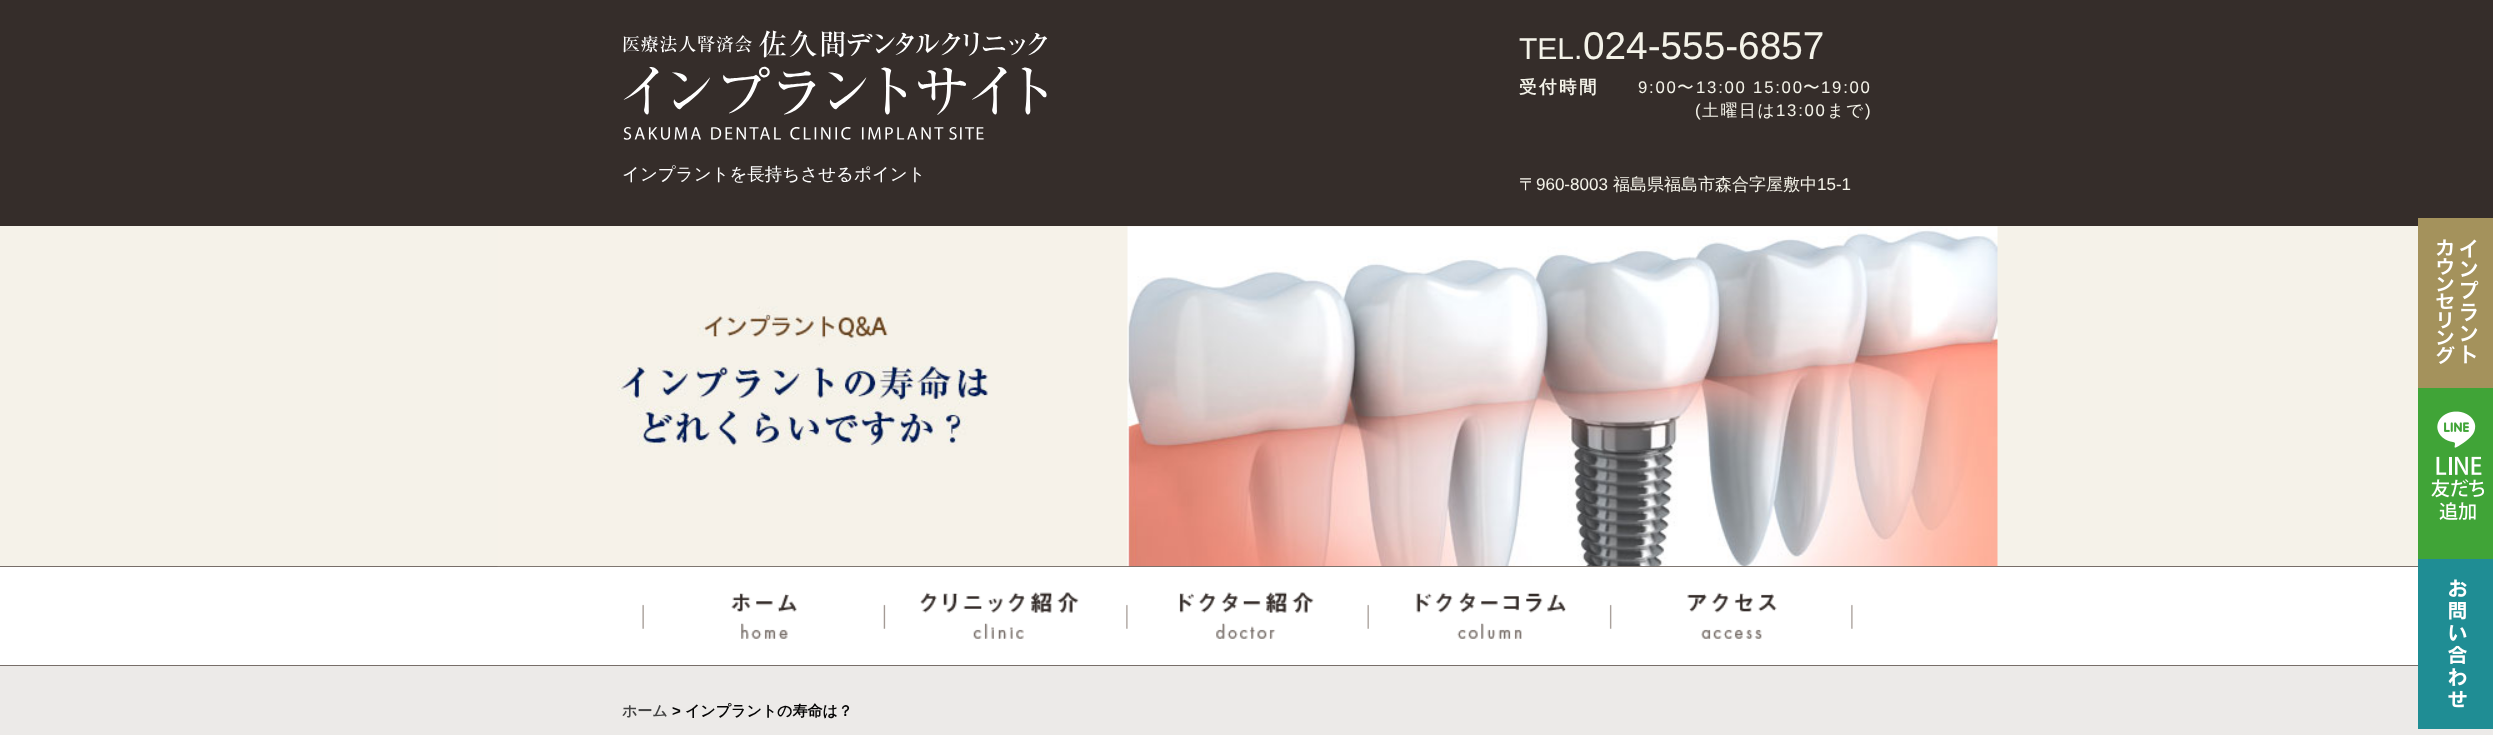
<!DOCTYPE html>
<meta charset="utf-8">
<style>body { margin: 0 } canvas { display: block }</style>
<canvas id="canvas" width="2493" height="735"></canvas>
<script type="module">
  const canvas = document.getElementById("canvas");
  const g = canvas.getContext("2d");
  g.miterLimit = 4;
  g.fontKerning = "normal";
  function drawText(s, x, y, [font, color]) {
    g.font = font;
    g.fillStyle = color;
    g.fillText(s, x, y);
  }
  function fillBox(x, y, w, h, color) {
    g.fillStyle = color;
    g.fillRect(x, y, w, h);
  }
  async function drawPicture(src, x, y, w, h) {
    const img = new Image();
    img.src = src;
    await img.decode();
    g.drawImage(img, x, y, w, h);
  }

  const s1 = ["500 17.5px WenQuanYi Zen Hei", "#FFFFFF"];
  const s2 = ["30px Liberation Sans", "#F4F3E9"];
  const s3 = ["38.75px Liberation Sans", "#F4F3E9"];
  const s4 = ["bold 17.5px WenQuanYi Zen Hei", "#F4F3E9"];
  const s5 = ["16.75px Liberation Sans", "#F4F3E9"];
  const s6 = ["500 16.75px WenQuanYi Zen Hei", "#F4F3E9"];
  const s7 = ["500 17px WenQuanYi Zen Hei", "#F4F3E9"];
  const s8 = ["17px Liberation Sans", "#F4F3E9"];
  const s9 = ["bold 15px WenQuanYi Zen Hei", "#444444"];
  const s10 = ["bold 15px Liberation Sans", "#040404"];
  const s11 = ["bold 15px WenQuanYi Zen Hei", "#040404"];

  fillBox(0, 0, 2493, 735, "#FFFFFF");
  fillBox(0, 0, 2493, 226, "#352D2A");
  await drawPicture("pic1.png", 623, 30, 425, 110);
  drawText("インプラントを長持ちさせるポイント", 622, 180, s1);
  drawText("TEL.", 1519, 59, s2);
  drawText("024-555-6857", 1583, 59, s3);
  g.letterSpacing = "2.5px";
  drawText("受付時間", 1519, 93, s4);
  g.letterSpacing = "1.75px";
  drawText("9:00", 1638, 93, s5);
  drawText("〜", 1677, 93, s6);
  drawText("13:00 15:00", 1696, 93, s5);
  drawText("〜", 1803, 93, s6);
  drawText("19:00", 1821, 93, s5);
  drawText("(", 1695, 116, s5);
  drawText("土曜日は", 1702, 116, s6);
  drawText("13:00", 1776, 116, s5);
  drawText("まで", 1827, 116, s6);
  drawText(")", 1865, 116, s5);
  g.letterSpacing = "0px";
  drawText("〒", 1519, 190, s7);
  drawText("960-8003", 1536, 190, s8);
  drawText("福島県福島市森合字屋敷中", 1613, 190, s7);
  drawText("15-1", 1817, 190, s8);
  fillBox(0, 566, 2418, 1, "#776E69");
  fillBox(0, 665, 2418, 1, "#776E69");
  await drawPicture("pic2.png", 642, 604, 1211, 25);
  await drawPicture("pic3.png", 731, 593, 66, 46);
  await drawPicture("pic4.png", 920, 592, 159, 47);
  await drawPicture("pic5.png", 1179, 592, 135, 47);
  await drawPicture("pic6.png", 1416, 592, 150, 47);
  await drawPicture("pic7.png", 1687, 592, 90, 47);
  await drawPicture("pic8.png", 2418, 218, 75, 170);
  await drawPicture("pic9.png", 2418, 388, 75, 171);
  fillBox(0, 666, 2493, 69, "#ECEAE8");
  await drawPicture("pic10.png", 2418, 559, 75, 170);
  fillBox(0, 226, 2418, 340, "#F5F2E9");
  await drawPicture("pic11.png", 497, 226, 1501, 341);
  drawText("ホーム", 622, 716, s9);
  drawText(">", 672, 716, s10);
  drawText("インプラントの寿命は？", 685, 716, s11);
</script>
